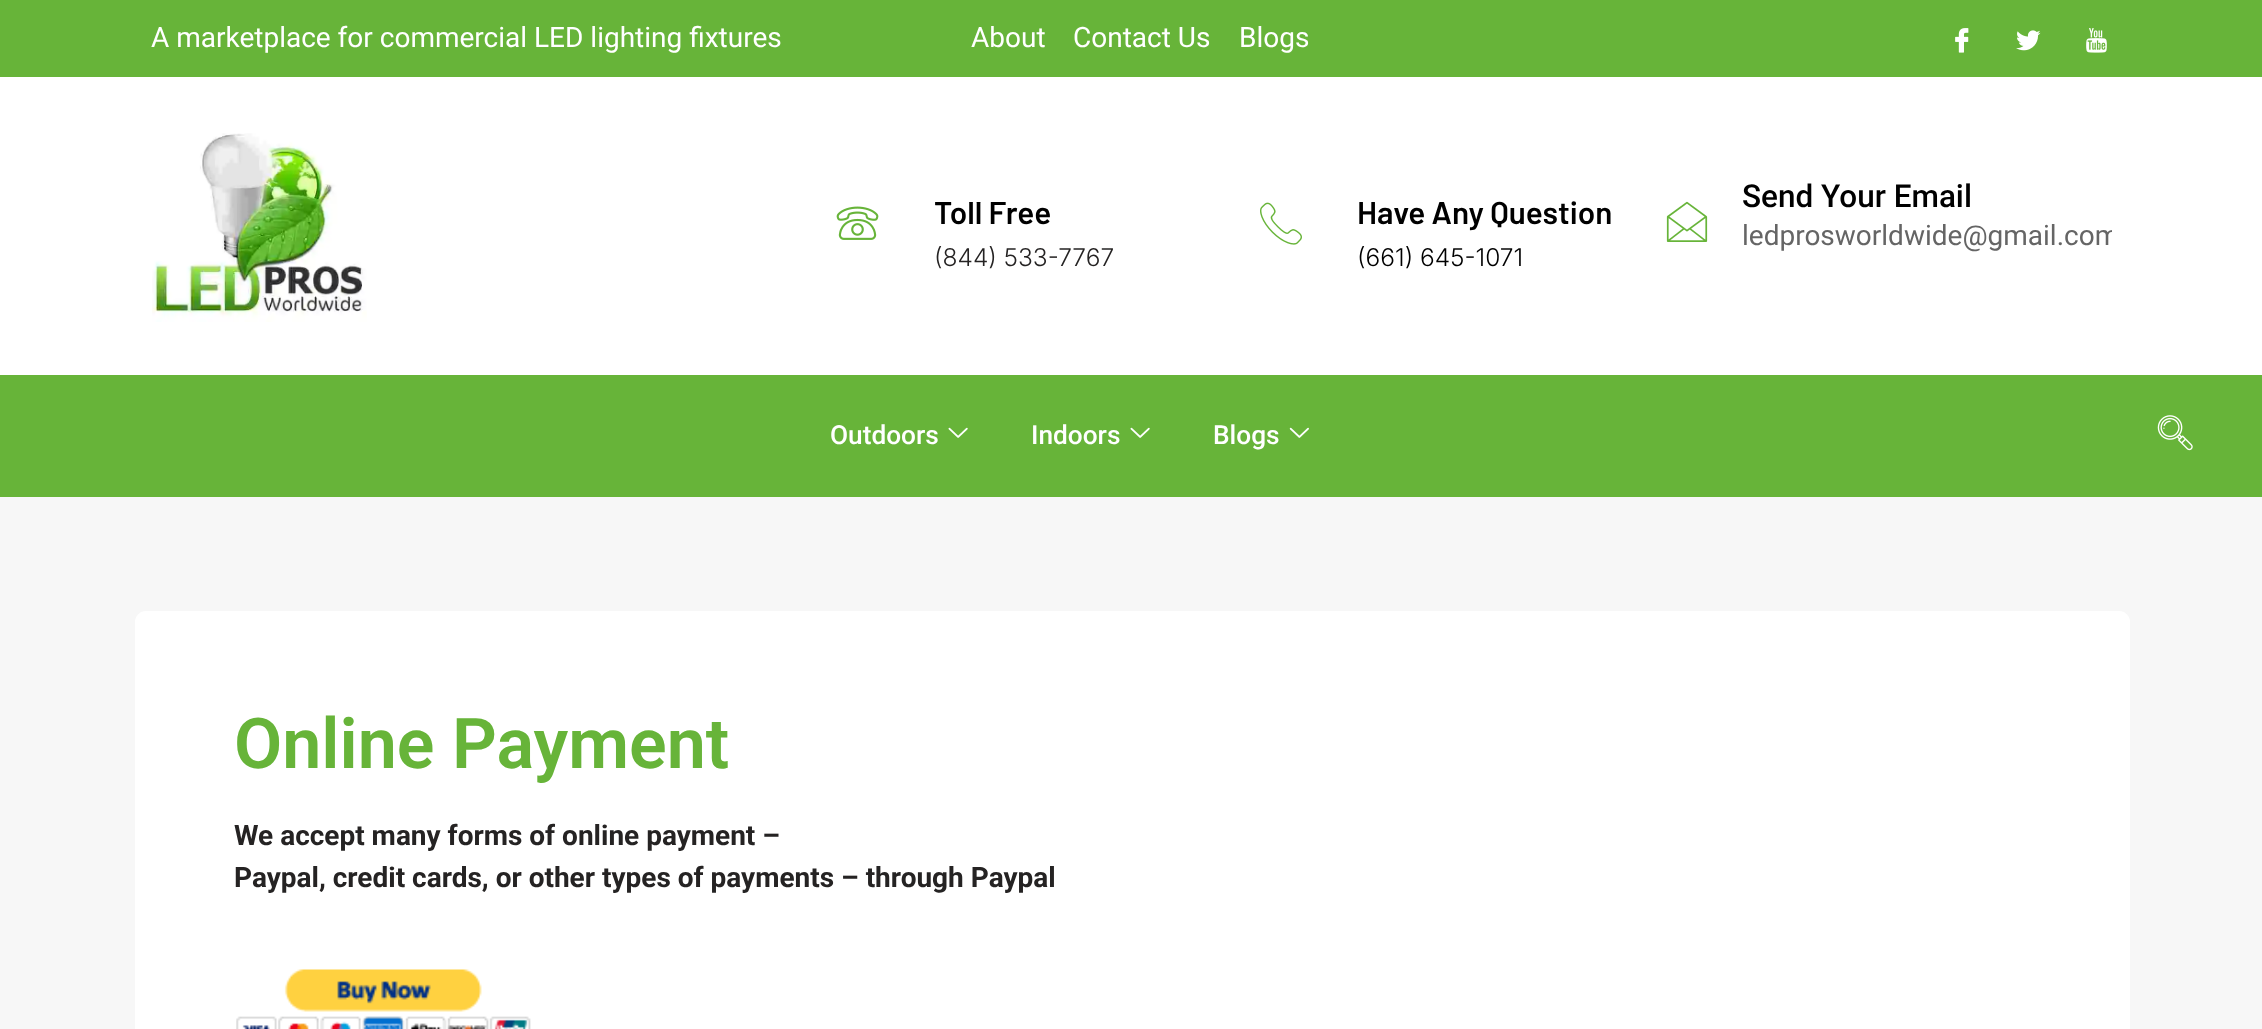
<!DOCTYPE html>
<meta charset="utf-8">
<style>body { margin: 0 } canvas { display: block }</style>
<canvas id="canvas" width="2262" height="1029"></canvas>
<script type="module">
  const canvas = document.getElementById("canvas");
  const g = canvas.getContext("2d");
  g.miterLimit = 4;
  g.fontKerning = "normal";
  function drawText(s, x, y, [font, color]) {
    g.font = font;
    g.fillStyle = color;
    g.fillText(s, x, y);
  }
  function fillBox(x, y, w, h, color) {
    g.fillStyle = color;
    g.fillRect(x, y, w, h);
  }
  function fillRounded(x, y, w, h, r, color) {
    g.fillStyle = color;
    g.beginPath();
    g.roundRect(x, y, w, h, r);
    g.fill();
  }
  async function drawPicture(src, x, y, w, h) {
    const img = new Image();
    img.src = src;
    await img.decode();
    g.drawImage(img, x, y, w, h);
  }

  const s1 = ["28px Roboto", "#FFFFFF"];
  const s2 = ["600 31.5px Barlow", "#000000"];
  const s3 = ["300 24.5px Inter", "#252323"];
  const s4 = ["300 24.5px Inter", "#000000"];
  const s5 = ["500 31.5px Roboto", "#000000"];
  const s6 = ["28px Roboto", "#656565"];
  const s7 = ["500 26.25px Roboto", "#FFFFFF"];
  const s8 = ["600 70px Roboto", "#67B439"];
  const s9 = ["bold 28px Roboto", "#252323"];

  fillBox(0, 0, 2262, 1029, "#FFFFFF");
  fillBox(0, 0, 2262, 77, "#67B439");
  drawText("A marketplace for commercial LED lighting fixtures", 151, 47, s1);
  drawText("About", 971, 47, s1);
  drawText("Contact Us", 1073, 47, s1);
  drawText("Blogs", 1239, 47, s1);
  await drawPicture("pic1.png", 1955, 28, 14, 25);
  await drawPicture("pic2.png", 2016, 30, 25, 21);
  await drawPicture("pic3.png", 2086, 28, 21, 25);
  await drawPicture("pic4.png", 152, 133, 215, 189);
  await drawPicture("pic5.png", 836, 206, 43, 34);
  drawText("Toll Free", 934, 224, s2);
  drawText("(844) 533-7767", 934, 266, s3);
  await drawPicture("pic6.png", 1260, 202, 42, 43);
  drawText("Have Any Question", 1357, 224, s2);
  drawText("(661) 645-1071", 1357, 266, s4);
  await drawPicture("pic7.png", 1666, 201, 42, 41);
  drawText("Send Your Email", 1742, 207, s5);
  g.save();
  g.beginPath();
  g.rect(1631, 130, 481, 192);
  g.clip();
  drawText("ledprosworldwide@gmail.com", 1742, 245, s6);
  g.restore();
  fillBox(0, 375, 2262, 122, "#67B439");
  drawText("Outdoors", 830, 444, s7);
  await drawPicture("pic8.png", 948, 427, 20, 11);
  drawText("Indoors", 1031, 444, s7);
  await drawPicture("pic8.png", 1130, 427, 20, 11);
  drawText("Blogs", 1213, 444, s7);
  await drawPicture("pic9.png", 1289, 427, 20, 11);
  await drawPicture("pic10.png", 2157, 415, 36, 36);
  fillBox(0, 497, 2262, 532, "#F7F7F7");
  fillRounded(135, 611, 1995, 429, 11, "#FFFFFF");
  drawText("Online Payment", 234, 768, s8);
  drawText("We accept many forms of online payment –", 234, 845, s9);
  drawText("Paypal, credit cards, or other types of payments – through Paypal", 234, 887, s9);
  await drawPicture("pic11.png", 236, 969, 295, 60);
</script>
